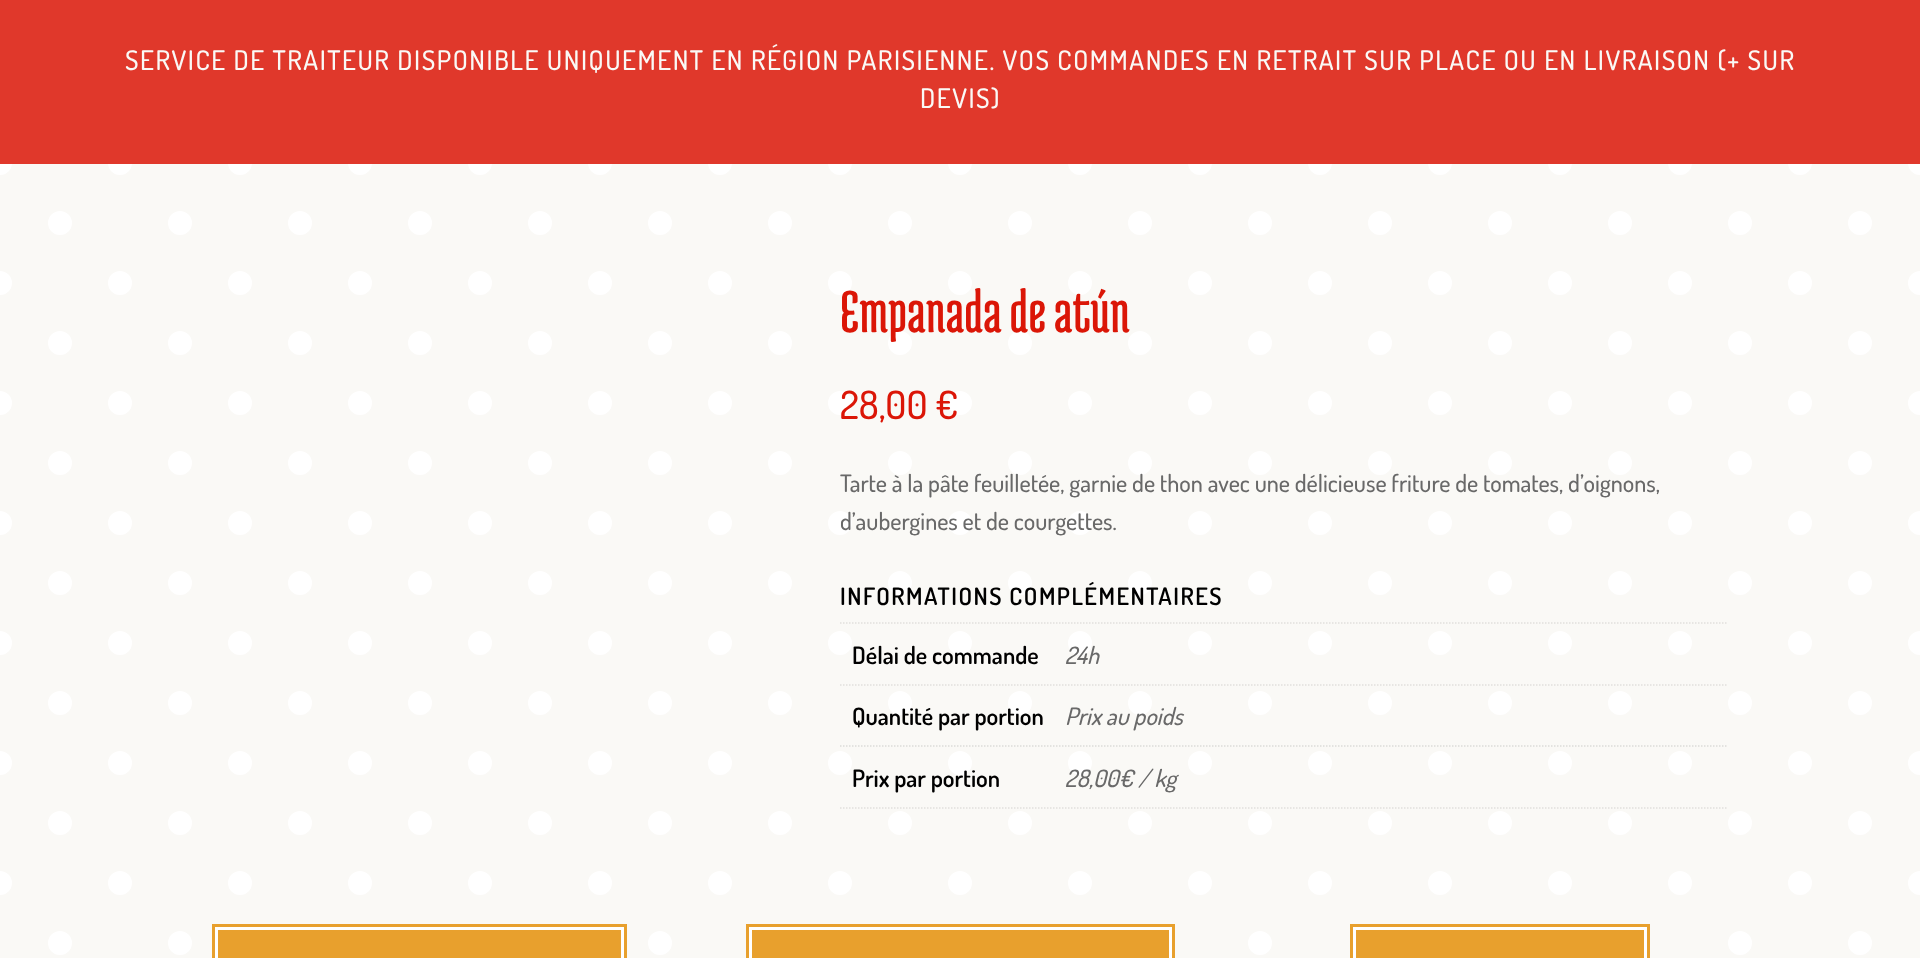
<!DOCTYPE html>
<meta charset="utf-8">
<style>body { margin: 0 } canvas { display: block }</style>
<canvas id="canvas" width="1920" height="958"></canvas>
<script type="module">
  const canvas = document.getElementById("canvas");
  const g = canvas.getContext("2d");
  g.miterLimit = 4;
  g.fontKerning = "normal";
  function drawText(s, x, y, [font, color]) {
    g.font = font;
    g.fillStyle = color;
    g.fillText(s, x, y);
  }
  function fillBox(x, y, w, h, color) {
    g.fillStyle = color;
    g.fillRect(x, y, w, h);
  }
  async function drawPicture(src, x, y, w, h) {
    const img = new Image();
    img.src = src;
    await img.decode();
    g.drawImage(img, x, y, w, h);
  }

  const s1 = ["500 27px Dosis", "#FAF9F6"];
  const s2 = ["63px Medula One", "#DB1607"];
  const s3 = ["500 39px Dosis", "#DB1607"];
  const s4 = ["500 24px Dosis", "#696969"];
  const s5 = ["600 24px Dosis", "#000000"];
  const s6 = ["italic 500 24px Dosis", "#696969"];

  fillBox(0, 0, 1920, 958, "#FAF9F6");
  await drawPicture("pic1.png", 0, 163, 1920, 792);
  fillBox(0, 0, 1920, 164, "rgba(219, 22, 7, 0.85)");
  g.letterSpacing = "1.5px";
  drawText("SERVICE DE TRAITEUR DISPONIBLE UNIQUEMENT EN RÉGION PARISIENNE. VOS COMMANDES EN RETRAIT SUR PLACE OU EN LIVRAISON (+ SUR", 125, 70, s1);
  drawText("DEVIS)", 920, 108, s1);
  g.letterSpacing = "0px";
  drawText("Empanada de atún", 840, 332, s2);
  drawText("28,00 €", 840, 419, s3);
  drawText("Tarte à la pâte feuilletée, garnie de thon avec une délicieuse friture de tomates, d’oignons,", 840, 492, s4);
  drawText("d’aubergines et de courgettes.", 840, 530, s4);
  g.letterSpacing = "1.5px";
  drawText("INFORMATIONS COMPLÉMENTAIRES", 840, 605, s5);
  g.beginPath();
  g.moveTo(840, 623);
  g.lineTo(1728, 623);
  g.strokeStyle = "#E1E0DD";
  g.lineWidth = 1.5;
  g.setLineDash([1.5, 1.5]);
  g.stroke();
  g.beginPath();
  g.moveTo(840, 685);
  g.lineTo(1065, 685);
  g.stroke();
  g.letterSpacing = "0px";
  drawText("Délai de commande", 852, 664, s5);
  g.beginPath();
  g.moveTo(1065, 685);
  g.lineTo(1728, 685);
  g.stroke();
  drawText("24h", 1065, 664, s6);
  g.beginPath();
  g.moveTo(840, 746);
  g.lineTo(1065, 746);
  g.strokeStyle = "#DCDCD9";
  g.stroke();
  drawText("Quantité par portion", 852, 725, s5);
  g.beginPath();
  g.moveTo(1065, 746);
  g.lineTo(1728, 746);
  g.stroke();
  drawText("Prix au poids", 1065, 725, s6);
  g.beginPath();
  g.moveTo(840, 808);
  g.lineTo(1065, 808);
  g.strokeStyle = "#E1E0DD";
  g.stroke();
  drawText("Prix par portion", 852, 787, s5);
  g.beginPath();
  g.moveTo(1065, 808);
  g.lineTo(1728, 808);
  g.stroke();
  drawText("28,00€ / kg", 1065, 787, s6);
  fillBox(212, 924, 415, 34, "#E8A02D");
  g.strokeStyle = "#FFFFFF";
  g.lineWidth = 3;
  g.setLineDash([]);
  g.strokeRect(216.5, 928.5, 406, 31);
  fillBox(746, 924, 429, 34, "#E8A02D");
  g.strokeRect(750.5, 928.5, 420, 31);
  fillBox(1350, 924, 300, 34, "#E8A02D");
  g.strokeRect(1354.5, 928.5, 291, 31);
</script>
